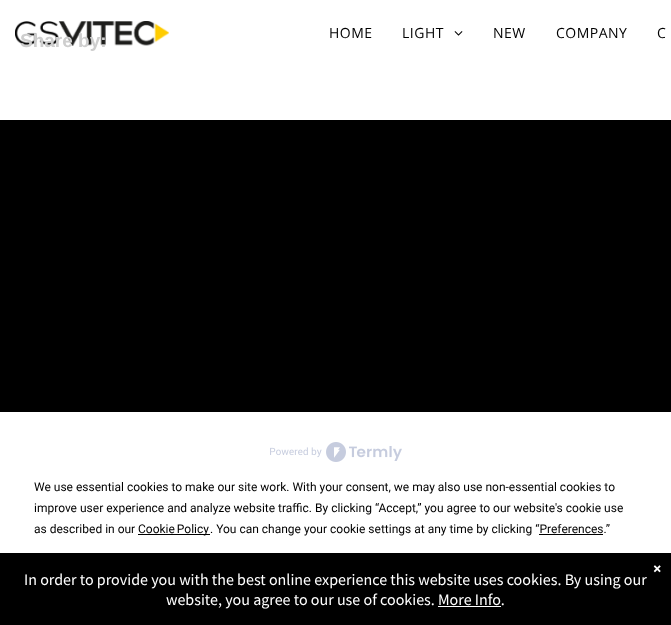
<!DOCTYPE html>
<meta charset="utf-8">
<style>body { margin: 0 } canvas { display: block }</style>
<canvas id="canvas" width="671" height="625"></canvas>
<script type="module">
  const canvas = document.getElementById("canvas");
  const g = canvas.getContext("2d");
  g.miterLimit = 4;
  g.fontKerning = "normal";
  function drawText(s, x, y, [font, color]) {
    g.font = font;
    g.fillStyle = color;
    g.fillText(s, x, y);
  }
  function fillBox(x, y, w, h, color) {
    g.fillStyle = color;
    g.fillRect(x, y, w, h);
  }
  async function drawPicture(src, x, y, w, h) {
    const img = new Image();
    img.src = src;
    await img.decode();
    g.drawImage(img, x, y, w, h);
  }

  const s1 = ["14px Open Sans", "#000000"];
  const s2 = ["bold 16px Source Sans Pro", "#FFFFFF"];
  const s3 = ["16px Source Sans Pro", "#FFFFFF"];
  const s4 = ["bold 19px Liberation Sans", "#CECECE"];
  const s5 = ["12px Roboto", "#000000"];

  fillBox(0, 0, 671, 625, "#FFFFFF");
  await drawPicture("pic1.png", 15, 21, 154, 25);
  g.letterSpacing = "0.5px";
  drawText("HOME", 329, 38, s1);
  drawText("LIGHT", 402, 38, s1);
  await drawPicture("pic2.png", 454, 31, 9, 5);
  drawText("NEW", 493, 38, s1);
  drawText("COMPANY", 556, 38, s1);
  drawText("C", 657, 38, s1);
  fillBox(0, 120, 671, 292, "#000000");
  fillBox(0, 553, 671, 72, "#000000");
  g.letterSpacing = "0px";
  drawText("×", 653, 574, s2);
  drawText("In order to provide you with the best online experience this website uses cookies. By using our", 24, 585, s3);
  drawText("website, you agree to our use of cookies. More Info.", 166, 605, s3);
  fillBox(438, 606, 63, 1, "#FFFFFF");
  drawText("Share by:", 20, 47, s4);
  await drawPicture("pic3.png", 270, 442, 132, 20);
  drawText("We use essential cookies to make our site work. With your consent, we may also use non-essential cookies to", 34, 491, s5);
  drawText("improve user experience and analyze website traffic. By clicking “Accept,” you agree to our website's cookie use", 34, 512, s5);
  drawText("as described in our", 34, 533, s5);
  fillBox(138, 534, 72, 1, "#000000");
  g.wordSpacing = "-1px";
  drawText("Cookie Policy", 138, 533, s5);
  g.wordSpacing = "0px";
  drawText(". You can change your cookie settings at any time by clicking “Preferences.”", 210, 533, s5);
  fillBox(539, 534, 64, 1, "#000000");
</script>
